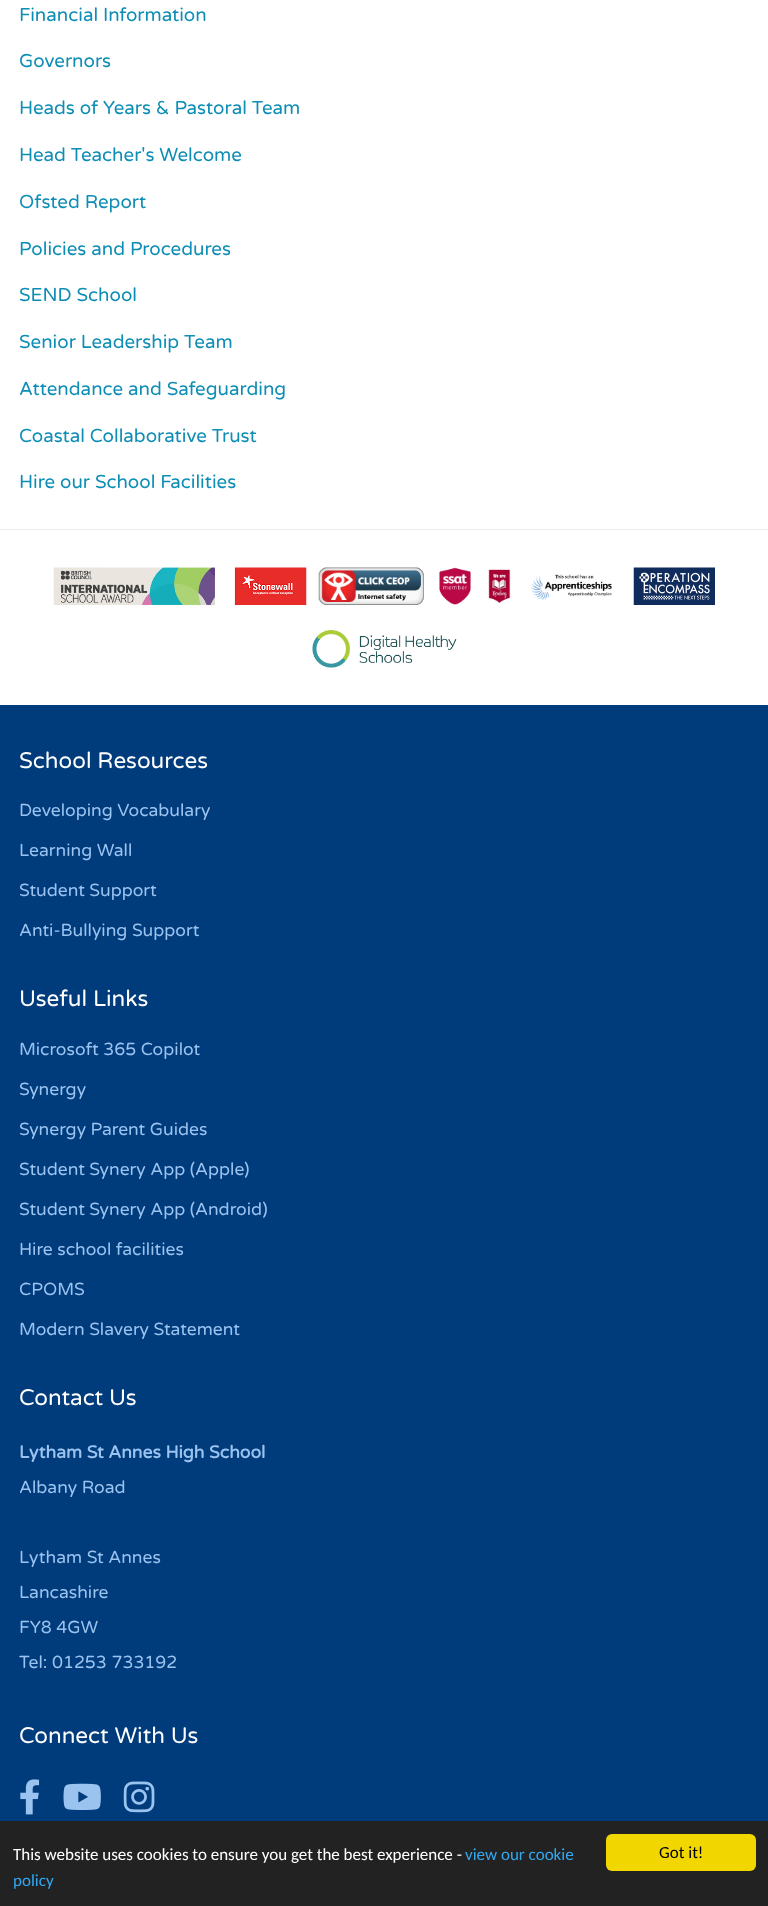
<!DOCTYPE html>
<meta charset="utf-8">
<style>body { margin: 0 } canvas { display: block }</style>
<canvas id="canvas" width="768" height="1906"></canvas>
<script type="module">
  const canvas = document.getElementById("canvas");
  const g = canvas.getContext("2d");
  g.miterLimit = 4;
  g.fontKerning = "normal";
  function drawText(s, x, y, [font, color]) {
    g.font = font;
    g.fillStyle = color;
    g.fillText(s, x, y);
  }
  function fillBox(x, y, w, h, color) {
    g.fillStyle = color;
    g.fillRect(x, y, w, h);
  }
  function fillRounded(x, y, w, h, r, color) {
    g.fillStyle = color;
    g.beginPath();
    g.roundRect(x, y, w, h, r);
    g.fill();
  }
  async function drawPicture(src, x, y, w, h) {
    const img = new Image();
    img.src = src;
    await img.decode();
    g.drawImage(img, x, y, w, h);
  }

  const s1 = ["18.75px Varela Round", "#0E8DB5"];
  const s2 = ["22.5px Varela Round", "#FFFFFF"];
  const s3 = ["17.5px Varela Round", "#9AC3F0"];
  const s4 = ["bold 17.5px Varela Round", "#9AC3F0"];
  const s5 = ["17px Carlito", "#FFFFFF"];
  const s6 = ["17px Carlito", "#31A8F0"];
  const s7 = ["17px Carlito", "#000000"];

  fillBox(0, 0, 768, 1906, "#FFFFFF");
  drawText("Financial Information", 19, 21, s1);
  drawText("Governors", 19, 67, s1);
  drawText("Heads of Years & Pastoral Team", 19, 114, s1);
  drawText("Head Teacher's Welcome", 19, 161, s1);
  drawText("Ofsted Report", 19, 208, s1);
  drawText("Policies and Procedures", 19, 255, s1);
  drawText("SEND School", 19, 301, s1);
  drawText("Senior Leadership Team", 19, 348, s1);
  drawText("Attendance and Safeguarding", 19, 395, s1);
  drawText("Coastal Collaborative Trust", 19, 442, s1);
  drawText("Hire our School Facilities", 19, 488, s1);
  fillBox(0, 529, 768, 1, "#EBEBEB");
  await drawPicture("pic1.png", 53, 567, 162, 38);
  await drawPicture("pic2.png", 234, 567, 73, 38);
  await drawPicture("pic3.png", 318, 567, 106, 38);
  await drawPicture("pic4.png", 439, 567, 32, 38);
  await drawPicture("pic5.png", 488, 569, 23, 34);
  await drawPicture("pic6.png", 531, 574, 81, 26);
  await drawPicture("pic7.png", 633, 567, 82, 38);
  await drawPicture("pic8.png", 312, 630, 145, 38);
  fillBox(0, 705, 768, 1116, "#003B7C");
  drawText("School Resources", 19, 768, s2);
  drawText("Developing Vocabulary", 19, 816, s3);
  drawText("Learning Wall", 19, 856, s3);
  drawText("Student Support", 19, 896, s3);
  drawText("Anti-Bullying Support", 19, 936, s3);
  drawText("Useful Links", 19, 1006, s2);
  drawText("Microsoft 365 Copilot", 19, 1055, s3);
  drawText("Synergy", 19, 1095, s3);
  drawText("Synergy Parent Guides", 19, 1135, s3);
  drawText("Student Synery App (Apple)", 19, 1175, s3);
  drawText("Student Synery App (Android)", 19, 1215, s3);
  drawText("Hire school facilities", 19, 1255, s3);
  drawText("CPOMS", 19, 1295, s3);
  drawText("Modern Slavery Statement", 19, 1335, s3);
  drawText("Contact Us", 19, 1405, s2);
  drawText("Lytham St Annes High School", 19, 1458, s4);
  drawText("Albany Road", 19, 1493, s3);
  drawText("Lytham St Annes", 19, 1563, s3);
  drawText("Lancashire", 19, 1598, s3);
  drawText("FY8 4GW", 19, 1633, s3);
  drawText("Tel: 01253 733192", 19, 1668, s3);
  drawText("Connect With Us", 19, 1743, s2);
  await drawPicture("pic9.png", 20, 1779, 20, 36);
  await drawPicture("pic10.png", 63, 1783, 38, 27);
  await drawPicture("pic11.png", 123, 1781, 32, 32);
  fillBox(0, 1821, 768, 85, "#222222");
  drawText("This website uses cookies to ensure you get the best experience -", 13, 1860, s5);
  drawText("view our cookie", 465, 1860, s6);
  drawText("policy", 13, 1886, s6);
  fillRounded(606, 1834, 150, 37, 6, "#F1D600");
  drawText("Got it!", 659, 1858, s7);
</script>
